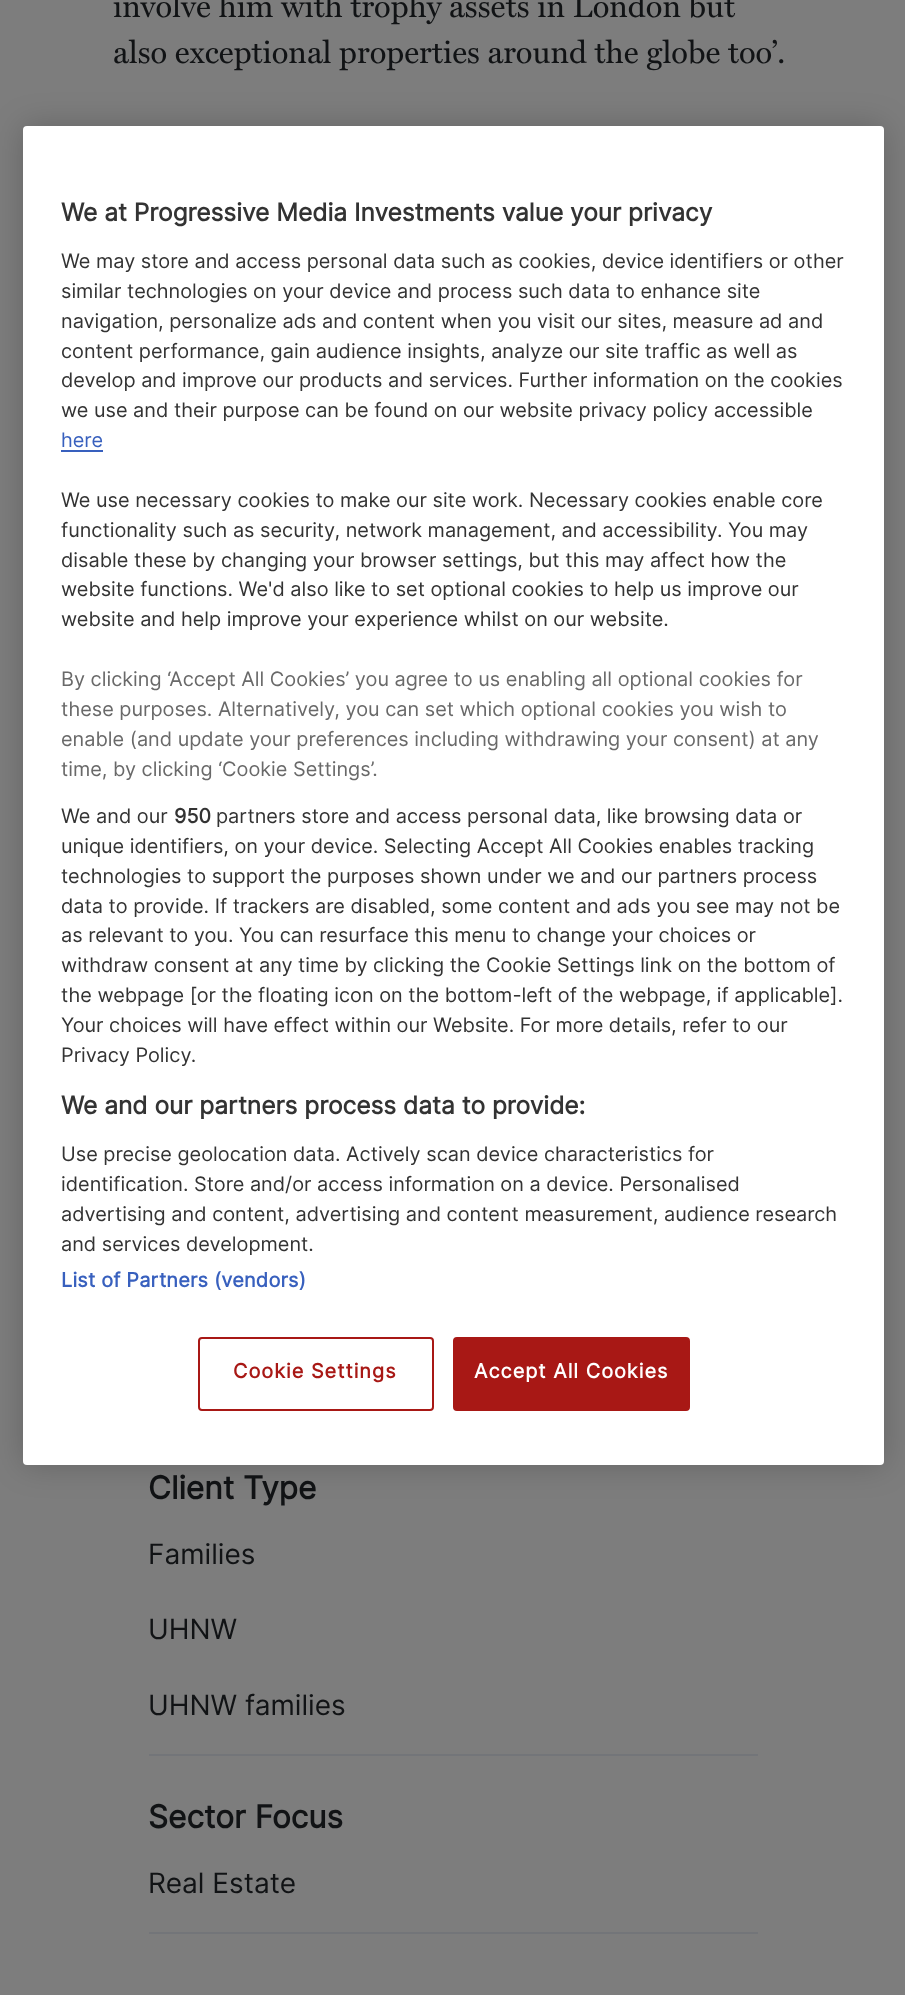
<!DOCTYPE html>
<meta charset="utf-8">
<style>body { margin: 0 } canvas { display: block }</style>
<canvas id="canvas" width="905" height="1995"></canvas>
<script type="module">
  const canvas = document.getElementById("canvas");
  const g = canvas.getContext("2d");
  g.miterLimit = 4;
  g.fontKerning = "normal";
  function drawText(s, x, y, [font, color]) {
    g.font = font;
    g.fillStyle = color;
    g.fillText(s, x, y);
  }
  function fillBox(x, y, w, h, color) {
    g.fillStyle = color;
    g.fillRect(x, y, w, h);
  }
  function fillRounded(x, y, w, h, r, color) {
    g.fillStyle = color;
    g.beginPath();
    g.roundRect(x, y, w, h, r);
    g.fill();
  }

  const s1 = ["31.5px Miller", "#111315"];
  const s2 = ["bold 31.5px Inter", "#111315"];
  const s3 = ["28px Inter", "#111315"];
  const s4 = ["bold 24.5px Inter", "#333333"];
  const s5 = ["19.9px Inter", "#333333"];
  const s6 = ["19.9px Inter", "#3860BE"];
  const s7 = ["19.9px Inter", "#696969"];
  const s8 = ["bold 19.9px Inter", "#333333"];
  const s9 = ["bold 19.9px Inter", "#3860BE"];
  const s10 = ["bold 19.9px Inter", "#A81815"];
  const s11 = ["bold 19.9px Inter", "#FFFFFF"];

  fillBox(0, 0, 905, 1995, "#7D7D7D");
  drawText("involve him with trophy assets in London but", 113, 17, s1);
  drawText("also exceptional properties around the globe too’.", 113, 63, s1);
  fillBox(149, 1754, 609, 2, "#737579");
  drawText("Client Type", 148, 1499, s2);
  drawText("Families", 148, 1564, s3);
  drawText("UHNW", 148, 1639, s3);
  drawText("UHNW families", 148, 1715, s3);
  fillBox(149, 1932, 609, 2, "#737579");
  drawText("Sector Focus", 148, 1828, s2);
  drawText("Real Estate", 148, 1893, s3);
  g.fillStyle = "rgba(0, 0, 0, 0.2)";
  g.filter = "blur(16px)";
  g.beginPath();
  g.roundRect(23, 126, 861, 1339, 4);
  g.fill();
  g.filter = "none";
  fillRounded(23, 126, 861, 1339, 4, "#FFFFFF");
  drawText("We at Progressive Media Investments value your privacy", 61, 221, s4);
  drawText("We may store and access personal data such as cookies, device identifiers or other", 61, 268, s5);
  drawText("similar technologies on your device and process such data to enhance site", 61, 298, s5);
  drawText("navigation, personalize ads and content when you visit our sites, measure ad and", 61, 328, s5);
  drawText("content performance, gain audience insights, analyze our site traffic as well as", 61, 358, s5);
  drawText("develop and improve our products and services. Further information on the cookies", 61, 387, s5);
  drawText("we use and their purpose can be found on our website privacy policy accessible", 61, 417, s5);
  drawText("here", 61, 447, s6);
  fillBox(61, 450, 42, 2, "#3860BE");
  drawText("We use necessary cookies to make our site work. Necessary cookies enable core", 61, 507, s5);
  drawText("functionality such as security, network management, and accessibility. You may", 61, 537, s5);
  drawText("disable these by changing your browser settings, but this may affect how the", 61, 567, s5);
  drawText("website functions. We'd also like to set optional cookies to help us improve our", 61, 596, s5);
  drawText("website and help improve your experience whilst on our website.", 61, 626, s5);
  drawText("By clicking ‘Accept All Cookies’ you agree to us enabling all optional cookies for", 61, 686, s7);
  drawText("these purposes. Alternatively, you can set which optional cookies you wish to", 61, 716, s7);
  drawText("enable (and update your preferences including withdrawing your consent) at any", 61, 746, s7);
  drawText("time, by clicking ‘Cookie Settings’.", 61, 776, s7);
  drawText("We and our", 61, 823, s5);
  drawText("950", 174, 823, s8);
  drawText("partners store and access personal data, like browsing data or", 216, 823, s5);
  drawText("unique identifiers, on your device. Selecting Accept All Cookies enables tracking", 61, 853, s5);
  drawText("technologies to support the purposes shown under we and our partners process", 61, 883, s5);
  drawText("data to provide. If trackers are disabled, some content and ads you see may not be", 61, 913, s5);
  drawText("as relevant to you. You can resurface this menu to change your choices or", 61, 942, s5);
  drawText("withdraw consent at any time by clicking the Cookie Settings link on the bottom of", 61, 972, s5);
  drawText("the webpage [or the floating icon on the bottom-left of the webpage, if applicable].", 61, 1002, s5);
  drawText("Your choices will have effect within our Website. For more details, refer to our", 61, 1032, s5);
  drawText("Privacy Policy.", 61, 1062, s5);
  drawText("We and our partners process data to provide:", 61, 1114, s4);
  drawText("Use precise geolocation data. Actively scan device characteristics for", 61, 1161, s5);
  drawText("identification. Store and/or access information on a device. Personalised", 61, 1191, s5);
  drawText("advertising and content, advertising and content measurement, audience research", 61, 1221, s5);
  drawText("and services development.", 61, 1251, s5);
  g.letterSpacing = "0.2px";
  drawText("List of Partners (vendors)", 61, 1287, s9);
  g.beginPath();
  g.roundRect(199, 1338, 234, 72, 3);
  g.strokeStyle = "#A81815";
  g.lineWidth = 2;
  g.stroke();
  g.letterSpacing = "1px";
  drawText("Cookie Settings", 233, 1378, s10);
  g.beginPath();
  g.roundRect(454, 1338, 235, 72, 3);
  g.fill();
  g.stroke();
  drawText("Accept All Cookies", 474, 1378, s11);
</script>
